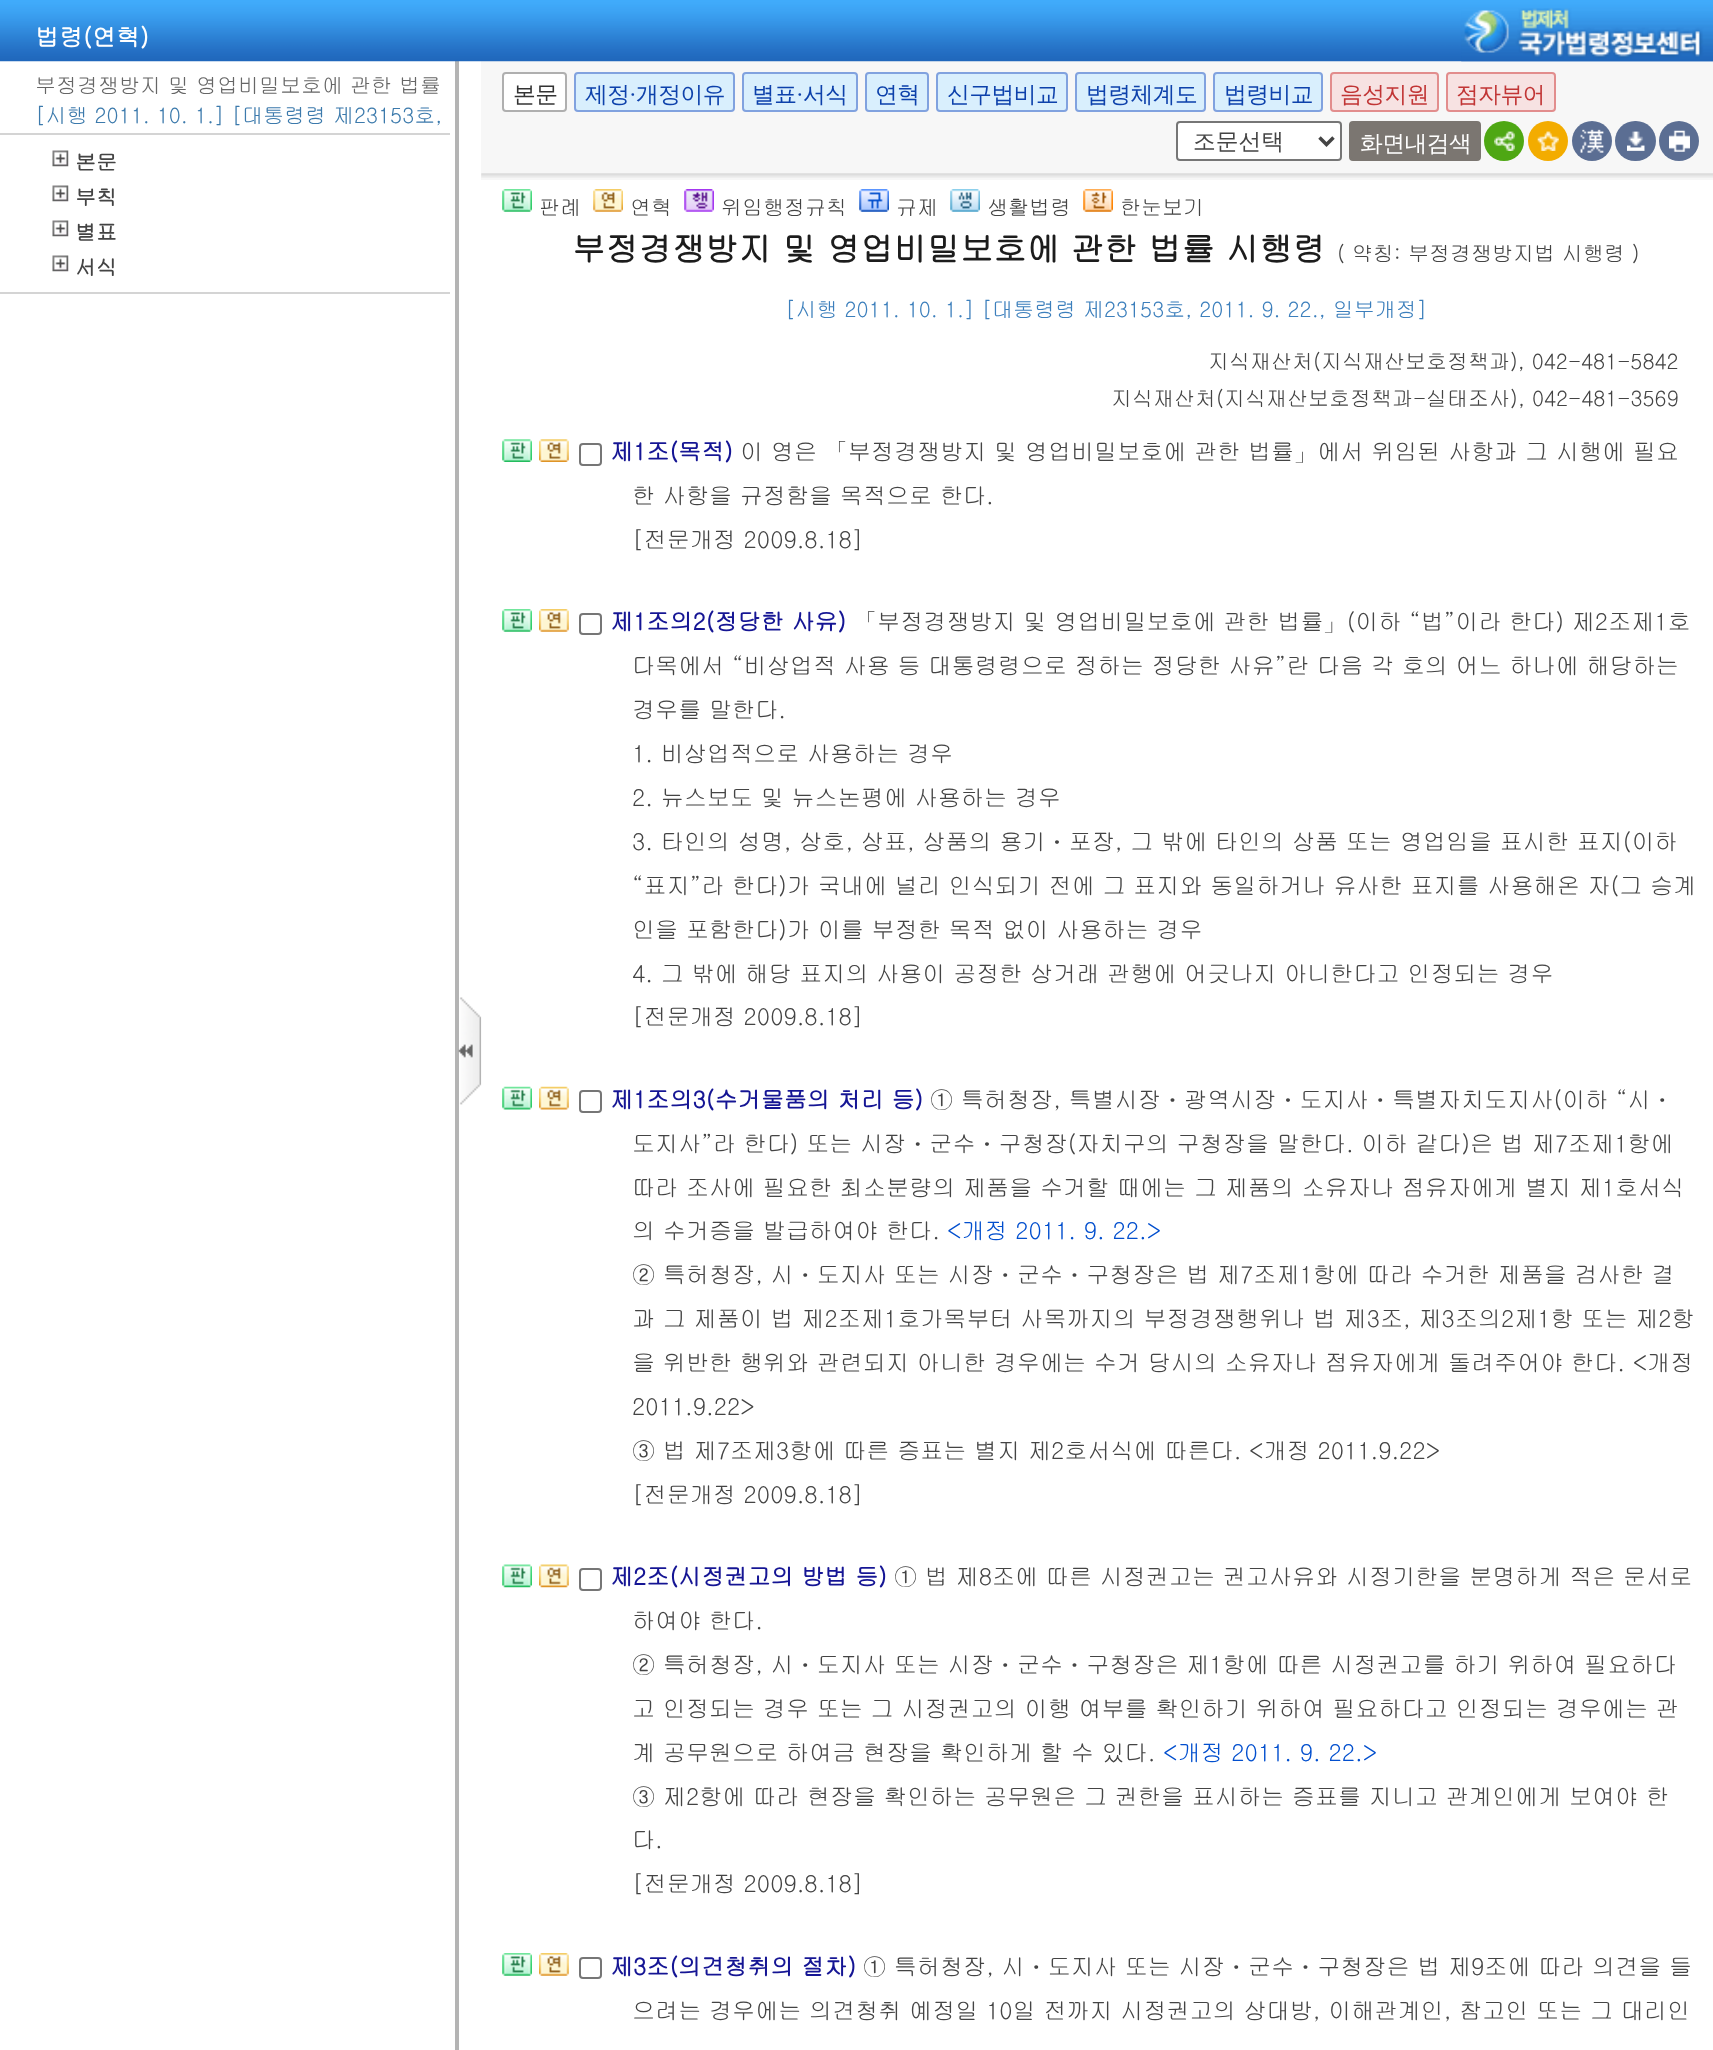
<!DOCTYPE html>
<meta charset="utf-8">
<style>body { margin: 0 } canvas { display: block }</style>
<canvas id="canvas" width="1713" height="2050"></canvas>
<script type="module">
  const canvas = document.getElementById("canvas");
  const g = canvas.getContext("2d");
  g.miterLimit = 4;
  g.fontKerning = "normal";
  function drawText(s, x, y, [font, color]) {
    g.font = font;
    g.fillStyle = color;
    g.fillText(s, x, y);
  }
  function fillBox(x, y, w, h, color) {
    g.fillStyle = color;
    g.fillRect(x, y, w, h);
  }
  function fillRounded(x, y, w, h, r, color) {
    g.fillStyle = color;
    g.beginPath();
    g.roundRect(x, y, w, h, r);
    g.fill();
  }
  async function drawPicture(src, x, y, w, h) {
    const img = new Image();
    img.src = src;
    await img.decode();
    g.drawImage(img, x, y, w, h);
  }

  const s1 = ["bold 24px Gulim", "#FFFFFF"];
  const s2 = ["21px Gulim", "#666666"];
  const s3 = ["21px Gulim", "#3C7AAC"];
  const s4 = ["bold 21px Gulim", "#444444"];
  const s5 = ["500 22.75px WenQuanYi Zen Hei", "#333333"];
  const s6 = ["500 22.75px WenQuanYi Zen Hei", "#0D41AB"];
  const s7 = ["22.75px Liberation Serif", "#0D41AB"];
  const s8 = ["500 22.75px WenQuanYi Zen Hei", "#C13535"];
  const s9 = ["500 22.75px WenQuanYi Zen Hei", "#444444"];
  const s10 = ["500 22.75px WenQuanYi Zen Hei", "#FFFFFF"];
  const s11 = ["21px Gulim", "#444444"];
  const s12 = ["bold 33.25px Gulim", "#1C1C1C"];
  const s13 = ["21px Gulim", "#3C7FBC"];
  const s14 = ["bold 23.1px Gulim", "#151594"];
  const s15 = ["23.1px Gulim", "#444444"];
  const s16 = ["23.1px Gulim", "#024FCE"];

  fillBox(0, 0, 1713, 2050, "#FFFFFF");
  fillBox(481, 61, 1232, 119, "#F7F7F7");
  fillBox(455, 60, 4, 1990, "#B4B4B4");
  await drawPicture("pic1.png", 0, 0, 1713, 62);
  drawText("법령(연혁)", 35, 46, s1);
  await drawPicture("pic2.png", 1461, 8, 252, 54);
  fillBox(0, 292, 450, 2, "#D4D4D4");
  drawText("부정경쟁방지 및 영업비밀보호에 관한 법률", 35, 93, s2);
  drawText("[시행 2011. 10. 1.] [대통령령 제23153호,", 35, 123, s3);
  fillBox(0, 133, 450, 2, "#D4D4D4");
  await drawPicture("pic3.png", 52, 150, 17, 17);
  drawText("본문", 75, 170, s4);
  await drawPicture("pic3.png", 52, 185, 17, 17);
  drawText("부칙", 75, 205, s4);
  await drawPicture("pic4.png", 52, 220, 17, 17);
  drawText("별표", 75, 240, s4);
  await drawPicture("pic3.png", 52, 255, 17, 17);
  drawText("서식", 75, 275, s4);
  await drawPicture("pic5.png", 481, 173, 1232, 5);
  g.fillStyle = "#FFFFFF";
  g.beginPath();
  g.roundRect(503, 73, 63, 38, 3);
  g.fill();
  g.strokeStyle = "#AFAFAF";
  g.lineWidth = 2;
  g.stroke();
  g.letterSpacing = "-0.5px";
  drawText("본문", 513, 102, s5);
  g.fillStyle = "#D9EFFD";
  g.beginPath();
  g.roundRect(575, 73, 159, 38, 3);
  g.fill();
  g.strokeStyle = "#81A2DF";
  g.stroke();
  drawText("제정", 585, 102, s6);
  drawText("·", 629, 102, s7);
  drawText("개정이유", 636, 102, s6);
  g.fillStyle = "#D9EFFD";
  g.beginPath();
  g.roundRect(743, 73, 114, 38, 3);
  g.fill();
  g.stroke();
  drawText("별표", 752, 102, s6);
  drawText("·", 796, 102, s7);
  drawText("서식", 803, 102, s6);
  g.fillStyle = "#D9EFFD";
  g.beginPath();
  g.roundRect(866, 73, 62, 38, 3);
  g.fill();
  g.stroke();
  drawText("연혁", 875, 102, s6);
  g.fillStyle = "#D9EFFD";
  g.beginPath();
  g.roundRect(937, 73, 130, 38, 3);
  g.fill();
  g.stroke();
  drawText("신구법비교", 947, 102, s6);
  g.fillStyle = "#D9EFFD";
  g.beginPath();
  g.roundRect(1076, 73, 129, 38, 3);
  g.fill();
  g.stroke();
  drawText("법령체계도", 1086, 102, s6);
  g.fillStyle = "#D9EFFD";
  g.beginPath();
  g.roundRect(1214, 73, 108, 38, 3);
  g.fill();
  g.stroke();
  drawText("법령비교", 1224, 102, s6);
  g.fillStyle = "#F7E2E2";
  g.beginPath();
  g.roundRect(1331, 73, 107, 38, 3);
  g.fill();
  g.strokeStyle = "#E28D8D";
  g.stroke();
  drawText("음성지원", 1340, 102, s8);
  g.fillStyle = "#F7E2E2";
  g.beginPath();
  g.roundRect(1447, 73, 108, 38, 3);
  g.fill();
  g.stroke();
  drawText("점자뷰어", 1456, 102, s8);
  g.fillStyle = "#FFFFFF";
  g.beginPath();
  g.roundRect(1177, 122, 164, 38, 3);
  g.fill();
  g.strokeStyle = "#767676";
  g.stroke();
  g.beginPath();
  g.moveTo(1319.5, 137.5);
  g.lineTo(1326.5, 144.5);
  g.lineTo(1333.5, 137.5);
  g.strokeStyle = "#444444";
  g.lineWidth = 3.5;
  g.stroke();
  g.letterSpacing = "0px";
  drawText("조문선택", 1193, 149, s9);
  g.fillStyle = "#7B7671";
  g.beginPath();
  g.roundRect(1350, 122, 130, 38, 3);
  g.fill();
  g.strokeStyle = "#7B7671";
  g.lineWidth = 2;
  g.stroke();
  g.letterSpacing = "-0.5px";
  drawText("화면내검색", 1360, 151, s10);
  g.fillStyle = "#4EA713";
  g.beginPath();
  g.arc(1504, 141, 20, 0, Math.PI * 2);
  g.fill();
  await drawPicture("pic6.png", 1494, 131, 21, 20);
  g.fillStyle = "#F3AC00";
  g.beginPath();
  g.arc(1548, 141, 20, 0, Math.PI * 2);
  g.fill();
  await drawPicture("pic7.png", 1537, 131, 22, 20);
  g.fillStyle = "#5B6E93";
  g.beginPath();
  g.arc(1592, 141, 20, 0, Math.PI * 2);
  g.fill();
  await drawPicture("pic8.png", 1580, 129, 24, 24);
  fillRounded(1615, 121, 41, 40, 20, "#5B6E93");
  await drawPicture("pic9.png", 1627, 131, 18, 20);
  g.beginPath();
  g.arc(1679, 141, 20, 0, Math.PI * 2);
  g.fill();
  await drawPicture("pic10.png", 1669, 130, 21, 22);
  await drawPicture("pic11.png", 502, 189, 30, 23);
  g.letterSpacing = "0px";
  drawText("판례", 539, 215, s11);
  await drawPicture("pic12.png", 593, 189, 30, 23);
  drawText("연혁", 630, 215, s11);
  await drawPicture("pic13.png", 684, 189, 30, 23);
  drawText("위임행정규칙", 721, 215, s11);
  await drawPicture("pic14.png", 859, 189, 30, 23);
  drawText("규제", 896, 215, s11);
  await drawPicture("pic15.png", 950, 189, 30, 23);
  drawText("생활법령", 987, 215, s11);
  await drawPicture("pic16.png", 1083, 189, 30, 23);
  drawText("한눈보기", 1120, 215, s11);
  drawText("부정경쟁방지 및 영업비밀보호에 관한 법률 시행령", 572, 261, s12);
  drawText("( 약칭: 부정경쟁방지법 시행령 )", 1337, 261, s11);
  drawText("[시행 2011. 10. 1.] [대통령령 제23153호, 2011. 9. 22., 일부개정]", 785, 317, s13);
  drawText("지식재산처(지식재산보호정책과), 042-481-5842", 1208, 369, s11);
  drawText("지식재산처(지식재산보호정책과-실태조사), 042-481-3569", 1111, 406, s11);
  await drawPicture("pic17.png", 502, 439, 30, 23);
  await drawPicture("pic18.png", 539, 439, 30, 23);
  g.beginPath();
  g.roundRect(580, 444, 21, 21, 3);
  g.strokeStyle = "#767676";
  g.stroke();
  drawText("제1조(목적)", 610, 460, s14);
  drawText("이 영은 「부정경쟁방지 및 영업비밀보호에 관한 법률」에서 위임된 사항과 그 시행에 필요", 740, 460, s15);
  drawText("한 사항을 규정함을 목적으로 한다.", 632, 504, s15);
  drawText("[전문개정 2009.8.18]", 632, 548, s15);
  await drawPicture("pic11.png", 502, 609, 30, 23);
  await drawPicture("pic19.png", 539, 609, 30, 23);
  g.beginPath();
  g.roundRect(580, 614, 21, 20, 3);
  g.stroke();
  drawText("제1조의2(정당한 사유)", 610, 630, s14);
  drawText("「부정경쟁방지 및 영업비밀보호에 관한 법률」(이하 “법”이라 한다) 제2조제1호", 854, 630, s15);
  drawText("다목에서 “비상업적 사용 등 대통령령으로 정하는 정당한 사유”란 다음 각 호의 어느 하나에 해당하는", 632, 674, s15);
  drawText("경우를 말한다.", 632, 718, s15);
  drawText("1. 비상업적으로 사용하는 경우", 632, 762, s15);
  drawText("2. 뉴스보도 및 뉴스논평에 사용하는 경우", 632, 806, s15);
  drawText("3. 타인의 성명, 상호, 상표, 상품의 용기ㆍ포장, 그 밖에 타인의 상품 또는 영업임을 표시한 표지(이하", 632, 850, s15);
  drawText("“표지”라 한다)가 국내에 널리 인식되기 전에 그 표지와 동일하거나 유사한 표지를 사용해온 자(그 승계", 632, 894, s15);
  drawText("인을 포함한다)가 이를 부정한 목적 없이 사용하는 경우", 632, 938, s15);
  drawText("4. 그 밖에 해당 표지의 사용이 공정한 상거래 관행에 어긋나지 아니한다고 인정되는 경우", 632, 982, s15);
  drawText("[전문개정 2009.8.18]", 632, 1025, s15);
  await drawPicture("pic20.png", 502, 1086, 30, 24);
  await drawPicture("pic21.png", 539, 1086, 30, 24);
  g.beginPath();
  g.roundRect(580, 1091, 21, 21, 3);
  g.stroke();
  drawText("제1조의3(수거물품의 처리 등)", 610, 1108, s14);
  drawText("① 특허청장, 특별시장ㆍ광역시장ㆍ도지사ㆍ특별자치도지사(이하 “시ㆍ", 930, 1108, s15);
  drawText("도지사”라 한다) 또는 시장ㆍ군수ㆍ구청장(자치구의 구청장을 말한다. 이하 같다)은 법 제7조제1항에", 632, 1152, s15);
  drawText("따라 조사에 필요한 최소분량의 제품을 수거할 때에는 그 제품의 소유자나 점유자에게 별지 제1호서식", 632, 1196, s15);
  drawText("의 수거증을 발급하여야 한다.", 632, 1239, s15);
  drawText("<개정 2011. 9. 22.>", 947, 1239, s16);
  drawText("② 특허청장, 시ㆍ도지사 또는 시장ㆍ군수ㆍ구청장은 법 제7조제1항에 따라 수거한 제품을 검사한 결", 632, 1283, s15);
  drawText("과 그 제품이 법 제2조제1호가목부터 사목까지의 부정경쟁행위나 법 제3조, 제3조의2제1항 또는 제2항", 632, 1327, s15);
  drawText("을 위반한 행위와 관련되지 아니한 경우에는 수거 당시의 소유자나 점유자에게 돌려주어야 한다. <개정", 632, 1371, s15);
  drawText("2011.9.22>", 632, 1415, s15);
  drawText("③ 법 제7조제3항에 따른 증표는 별지 제2호서식에 따른다. <개정 2011.9.22>", 632, 1459, s15);
  drawText("[전문개정 2009.8.18]", 632, 1503, s15);
  await drawPicture("pic22.png", 502, 1564, 30, 24);
  await drawPicture("pic23.png", 539, 1564, 30, 24);
  g.beginPath();
  g.roundRect(580, 1569, 21, 21, 3);
  g.stroke();
  drawText("제2조(시정권고의 방법 등)", 610, 1585, s14);
  drawText("① 법 제8조에 따른 시정권고는 권고사유와 시정기한을 분명하게 적은 문서로", 894, 1585, s15);
  drawText("하여야 한다.", 632, 1629, s15);
  drawText("② 특허청장, 시ㆍ도지사 또는 시장ㆍ군수ㆍ구청장은 제1항에 따른 시정권고를 하기 위하여 필요하다", 632, 1673, s15);
  drawText("고 인정되는 경우 또는 그 시정권고의 이행 여부를 확인하기 위하여 필요하다고 인정되는 경우에는 관", 632, 1717, s15);
  drawText("계 공무원으로 하여금 현장을 확인하게 할 수 있다.", 632, 1761, s15);
  drawText("<개정 2011. 9. 22.>", 1163, 1761, s16);
  drawText("③ 제2항에 따라 현장을 확인하는 공무원은 그 권한을 표시하는 증표를 지니고 관계인에게 보여야 한", 632, 1805, s15);
  drawText("다.", 632, 1848, s15);
  drawText("[전문개정 2009.8.18]", 632, 1892, s15);
  await drawPicture("pic11.png", 502, 1953, 30, 23);
  await drawPicture("pic19.png", 539, 1953, 30, 23);
  g.beginPath();
  g.roundRect(580, 1958, 21, 20, 3);
  g.stroke();
  drawText("제3조(의견청취의 절차)", 610, 1975, s14);
  drawText("① 특허청장, 시ㆍ도지사 또는 시장ㆍ군수ㆍ구청장은 법 제9조에 따라 의견을 들", 863, 1975, s15);
  drawText("으려는 경우에는 의견청취 예정일 10일 전까지 시정권고의 상대방, 이해관계인, 참고인 또는 그 대리인", 632, 2019, s15);
  await drawPicture("pic24.png", 458, 997, 24, 108);
</script>
